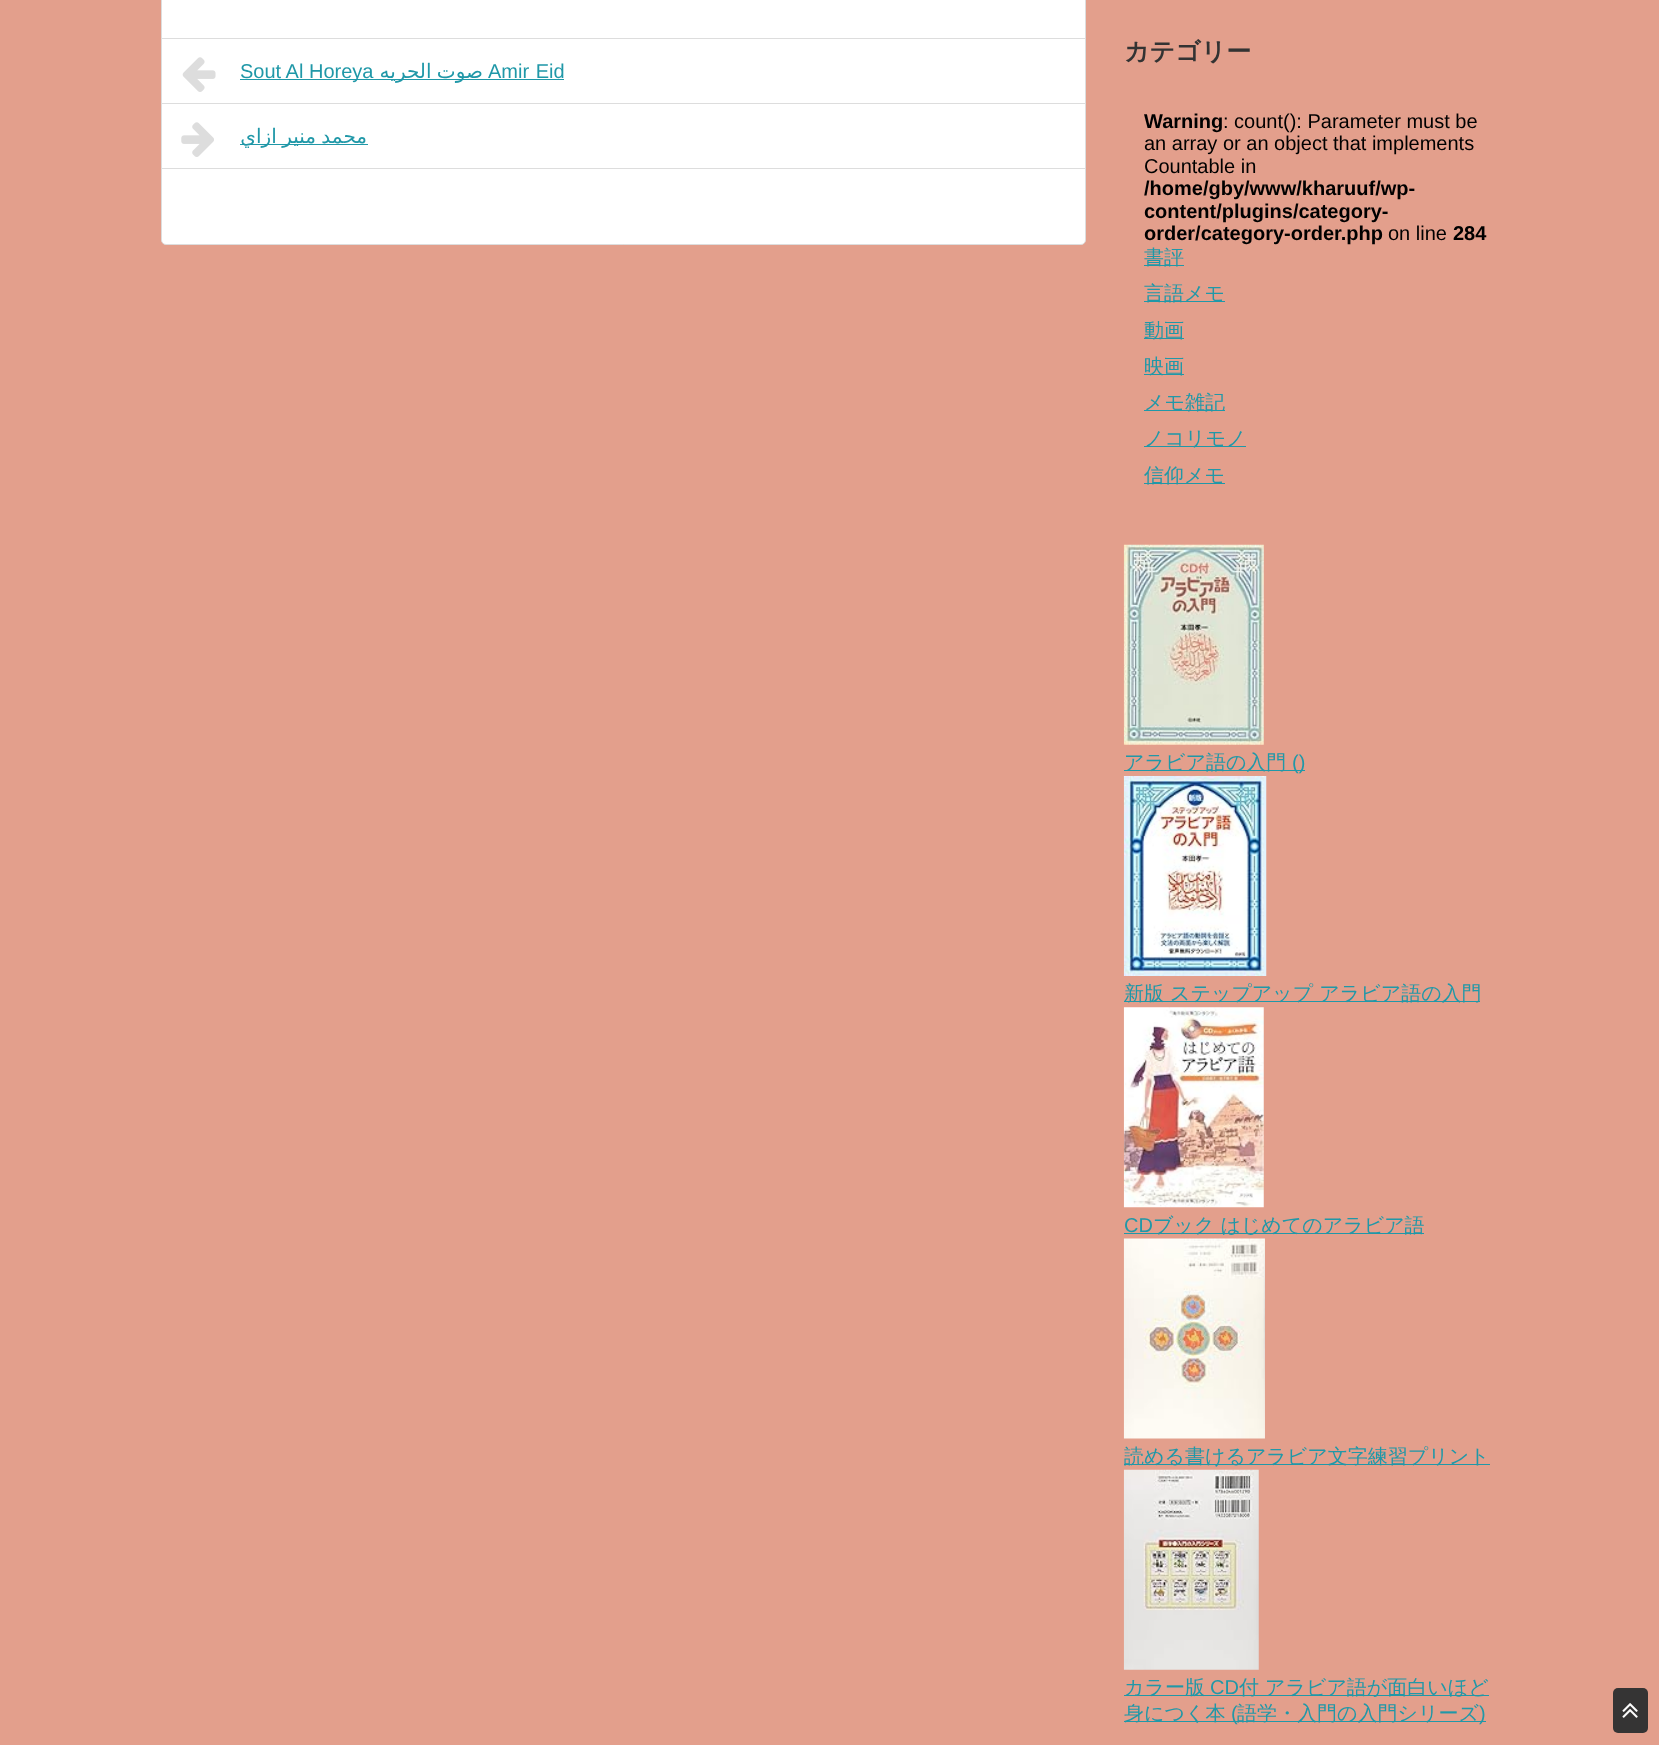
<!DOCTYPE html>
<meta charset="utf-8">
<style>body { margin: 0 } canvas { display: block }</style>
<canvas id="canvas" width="1659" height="1745"></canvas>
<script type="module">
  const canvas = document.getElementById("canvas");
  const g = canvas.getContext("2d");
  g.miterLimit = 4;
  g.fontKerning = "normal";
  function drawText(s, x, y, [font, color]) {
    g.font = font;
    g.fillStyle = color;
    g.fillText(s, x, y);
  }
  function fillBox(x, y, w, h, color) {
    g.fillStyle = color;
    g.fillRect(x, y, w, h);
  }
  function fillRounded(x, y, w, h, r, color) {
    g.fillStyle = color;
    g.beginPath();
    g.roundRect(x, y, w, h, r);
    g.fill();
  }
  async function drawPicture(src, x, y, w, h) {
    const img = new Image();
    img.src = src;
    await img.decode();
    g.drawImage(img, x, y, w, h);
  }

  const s1 = ["20px Liberation Sans", "#2098A8"];
  const s2 = ["20px DejaVu Sans", "#2098A8"];
  const s3 = ["bold 25px WenQuanYi Zen Hei", "#333333"];
  const s4 = ["bold 20px Liberation Sans", "#000000"];
  const s5 = ["20px Liberation Sans", "#000000"];
  const s6 = ["500 20px WenQuanYi Zen Hei", "#2098A8"];

  fillBox(0, 0, 1659, 1745, "#E39F8C");
  g.fillStyle = "#FFFFFF";
  g.beginPath();
  g.roundRect(161.5, -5.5, 924, 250, 4.5);
  g.fill();
  g.strokeStyle = "#DDDDDD";
  g.stroke();
  fillBox(161, 38, 925, 1, "#DDDDDD");
  fillBox(161, 103, 925, 1, "#DDDDDD");
  await drawPicture("pic1.png", 182, 57, 34, 35);
  fillBox(240, 79, 324, 1, "#2098A8");
  drawText("Sout Al Horeya", 240, 78, s1);
  g.wordSpacing = "-1px";
  g.direction = "rtl";
  drawText("صوت الحريه", 483, 78, s2);
  g.wordSpacing = "1px";
  g.direction = "ltr";
  drawText("Amir Eid", 488, 78, s1);
  fillBox(161, 168, 925, 1, "#DDDDDD");
  await drawPicture("pic2.png", 181, 122, 33, 35);
  fillBox(240, 144, 128, 1, "#2098A8");
  g.wordSpacing = "-1px";
  g.direction = "rtl";
  drawText("محمد منير ازاي", 367, 143, s2);
  g.wordSpacing = "0px";
  g.direction = "ltr";
  drawText("カテゴリー", 1124, 60, s3);
  drawText("Warning", 1144, 128, s4);
  drawText(": count(): Parameter must be", 1223, 128, s5);
  drawText("an array or an object that implements", 1144, 150, s5);
  drawText("Countable in", 1144, 173, s5);
  drawText("/home/gby/www/kharuuf/wp-", 1144, 195, s4);
  drawText("content/plugins/category-", 1144, 218, s4);
  drawText("order/category-order.php", 1144, 240, s4);
  drawText("on line", 1388, 240, s5);
  drawText("284", 1453, 240, s4);
  fillBox(1144, 265, 40, 1, "#2098A8");
  drawText("書評", 1144, 264, s6);
  fillBox(1144, 301, 81, 1, "#2098A8");
  drawText("言語メモ", 1144, 300, s6);
  fillBox(1144, 338, 40, 1, "#2098A8");
  drawText("動画", 1144, 337, s6);
  fillBox(1144, 374, 40, 1, "#2098A8");
  drawText("映画", 1144, 373, s6);
  fillBox(1144, 410, 81, 1, "#2098A8");
  drawText("メモ雑記", 1144, 409, s6);
  fillBox(1144, 446, 102, 1, "#2098A8");
  drawText("ノコリモノ", 1144, 445, s6);
  fillBox(1144, 483, 81, 1, "#2098A8");
  drawText("信仰メモ", 1144, 482, s6);
  await drawPicture("pic3.png", 1123, 544, 141, 201);
  fillBox(1124, 770, 181, 1, "#2098A8");
  drawText("アラビア語の入門", 1124, 769, s6);
  drawText("()", 1292, 769, s1);
  await drawPicture("pic4.png", 1123, 776, 144, 200);
  fillBox(1124, 1001, 356, 1, "#2098A8");
  drawText("新版 ステップアップ アラビア語の入門", 1124, 1000, s6);
  await drawPicture("pic5.png", 1123, 1007, 141, 201);
  drawText("CD", 1124, 1232, s1);
  fillBox(1124, 1233, 300, 1, "#2098A8");
  drawText("ブック はじめてのアラビア語", 1153, 1232, s6);
  await drawPicture("pic6.png", 1123, 1238, 142, 201);
  fillBox(1124, 1464, 366, 1, "#2098A8");
  drawText("読める書けるアラビア文字練習プリント", 1124, 1463, s6);
  await drawPicture("pic7.png", 1123, 1469, 136, 201);
  fillBox(1124, 1695, 365, 1, "#2098A8");
  drawText("カラー版", 1124, 1694, s6);
  drawText("CD", 1210, 1694, s1);
  drawText("付 アラビア語が面白いほど", 1239, 1694, s6);
  fillBox(1124, 1721, 362, 1, "#2098A8");
  drawText("身につく本", 1124, 1720, s6);
  drawText("(", 1231, 1720, s1);
  drawText("語学・入門の入門シリーズ", 1237, 1720, s6);
  drawText(")", 1479, 1720, s1);
  fillRounded(1613, 1688, 35, 45, 5, "#353434");
  await drawPicture("pic8.png", 1622, 1703, 16, 15);
</script>
